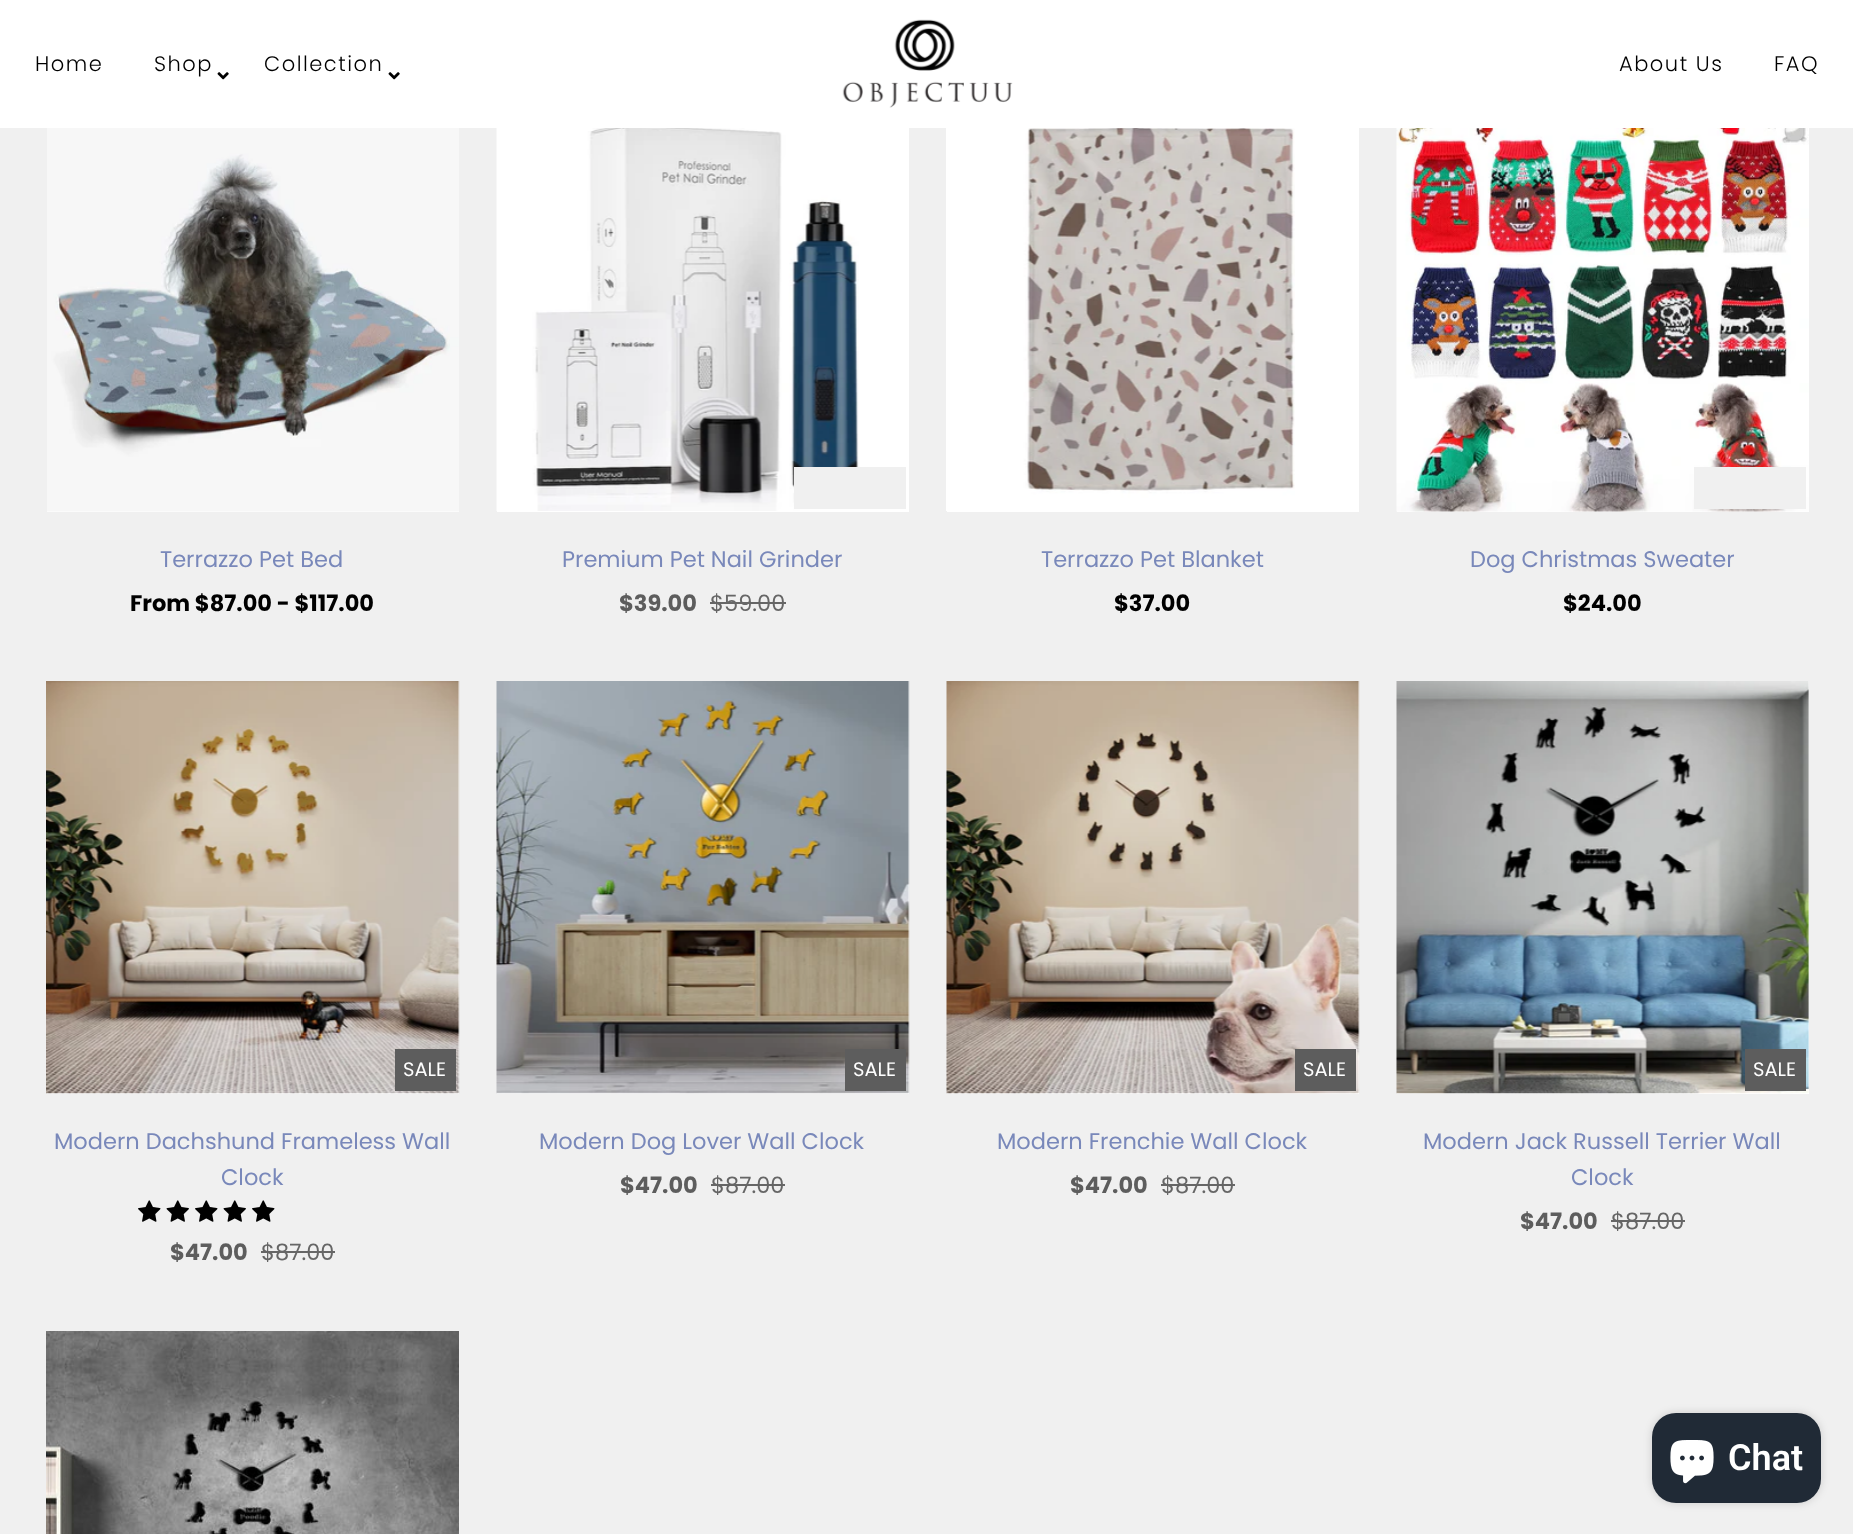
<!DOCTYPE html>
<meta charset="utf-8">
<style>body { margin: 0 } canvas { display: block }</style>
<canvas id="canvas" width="1853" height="1534"></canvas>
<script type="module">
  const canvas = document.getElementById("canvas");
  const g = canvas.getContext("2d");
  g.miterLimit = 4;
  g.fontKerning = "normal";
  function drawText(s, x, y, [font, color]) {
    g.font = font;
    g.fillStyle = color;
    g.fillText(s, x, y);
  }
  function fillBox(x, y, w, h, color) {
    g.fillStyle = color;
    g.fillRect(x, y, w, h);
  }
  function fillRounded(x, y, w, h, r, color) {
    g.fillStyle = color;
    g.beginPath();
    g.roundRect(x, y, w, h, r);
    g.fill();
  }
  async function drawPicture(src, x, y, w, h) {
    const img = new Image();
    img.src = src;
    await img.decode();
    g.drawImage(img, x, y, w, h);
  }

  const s1 = ["300 21px Poppins", "#000000"];
  const s2 = ["22.5px Poppins", "#7988BA"];
  const s3 = ["bold 22.5px Poppins", "#000000"];
  const s4 = ["bold 22.5px Poppins", "#5D5D5D"];
  const s5 = ["22.5px Poppins", "#666666"];
  const s6 = ["19.5px Poppins", "#FFFFFF"];
  const s7 = ["600 36px Roboto", "#FFFFFF"];

  fillBox(0, 0, 1853, 1534, "#F0F0F0");
  fillBox(0, 0, 1853, 128, "#FFFFFF");
  g.letterSpacing = "1.5px";
  drawText("Home", 35, 71, s1);
  drawText("Shop", 154, 71, s1);
  await drawPicture("pic1.png", 217, 72, 12, 8);
  drawText("Collection", 264, 71, s1);
  await drawPicture("pic1.png", 388, 72, 12, 8);
  await drawPicture("pic2.png", 842, 19, 171, 89);
  drawText("About Us", 1619, 71, s1);
  drawText("FAQ", 1774, 71, s1);
  fillBox(47, 511, 412, 1, "#FFFFFF");
  await drawPicture("pic3.png", 47, 128, 412, 384);
  g.letterSpacing = "0px";
  drawText("Terrazzo Pet Bed", 160, 567, s2);
  drawText("From $87.00 - $117.00", 130, 611, s3);
  fillBox(497, 128, 412, 384, "#FFFFFF");
  await drawPicture("pic4.png", 496, 128, 363, 383);
  fillBox(794, 467, 112, 42, "#F0F0F0");
  drawText("Premium Pet Nail Grinder", 562, 567, s2);
  drawText("$39.00", 619, 611, s4);
  drawText("$59.00", 710, 611, s5);
  fillBox(710, 602, 76, 2, "#666666");
  fillBox(947, 128, 412, 384, "#FFFFFF");
  await drawPicture("pic5.png", 946, 128, 349, 383);
  drawText("Terrazzo Pet Blanket", 1041, 567, s2);
  drawText("$37.00", 1114, 611, s3);
  fillBox(1397, 511, 412, 1, "#FFFFFF");
  await drawPicture("pic6.png", 1396, 128, 413, 384);
  fillBox(1694, 467, 112, 42, "#F0F0F0");
  drawText("Dog Christmas Sweater", 1470, 567, s2);
  drawText("$24.00", 1563, 611, s3);
  fillBox(47, 681, 412, 413, "#FFFFFF");
  await drawPicture("pic7.png", 46, 681, 414, 413);
  fillBox(395, 1049, 61, 42, "#5D5D5D");
  drawText("SALE", 403, 1076, s6);
  drawText("Modern Dachshund Frameless Wall", 54, 1149, s2);
  drawText("Clock", 221, 1185, s2);
  await drawPicture("pic8.png", 138, 1200, 23, 22);
  await drawPicture("pic9.png", 166, 1200, 23, 22);
  await drawPicture("pic8.png", 195, 1200, 23, 22);
  await drawPicture("pic9.png", 223, 1200, 23, 22);
  await drawPicture("pic8.png", 252, 1200, 23, 22);
  drawText("$47.00", 170, 1260, s4);
  drawText("$87.00", 261, 1260, s5);
  fillBox(261, 1251, 74, 2, "#666666");
  fillBox(497, 681, 412, 413, "#FFFFFF");
  await drawPicture("pic10.png", 496, 681, 414, 413);
  fillBox(845, 1049, 61, 42, "#5D5D5D");
  drawText("SALE", 853, 1076, s6);
  drawText("Modern Dog Lover Wall Clock", 539, 1149, s2);
  drawText("$47.00", 620, 1193, s4);
  drawText("$87.00", 711, 1193, s5);
  fillBox(711, 1184, 74, 2, "#666666");
  fillBox(947, 681, 412, 413, "#FFFFFF");
  await drawPicture("pic11.png", 946, 681, 414, 413);
  fillBox(1295, 1049, 61, 42, "#5D5D5D");
  drawText("SALE", 1303, 1076, s6);
  drawText("Modern Frenchie Wall Clock", 997, 1149, s2);
  drawText("$47.00", 1070, 1193, s4);
  drawText("$87.00", 1161, 1193, s5);
  fillBox(1161, 1184, 74, 2, "#666666");
  fillBox(1397, 681, 412, 413, "#FFFFFF");
  await drawPicture("pic12.png", 1396, 681, 413, 413);
  fillBox(1745, 1049, 61, 42, "#5D5D5D");
  drawText("SALE", 1753, 1076, s6);
  drawText("Modern Jack Russell Terrier Wall", 1423, 1149, s2);
  drawText("Clock", 1571, 1185, s2);
  drawText("$47.00", 1520, 1229, s4);
  drawText("$87.00", 1611, 1229, s5);
  fillBox(1611, 1220, 74, 2, "#666666");
  await drawPicture("pic13.png", 46, 1331, 413, 203);
  g.fillStyle = "rgba(0, 0, 0, 0.15)";
  g.filter = "blur(4px)";
  g.beginPath();
  g.roundRect(1652, 1413, 169, 90, 24);
  g.fill();
  g.filter = "none";
  fillRounded(1652, 1413, 169, 90, 24, "#202A36");
  await drawPicture("pic14.png", 1670, 1440, 44, 44);
  drawText("Chat", 1728, 1470, s7);
</script>
